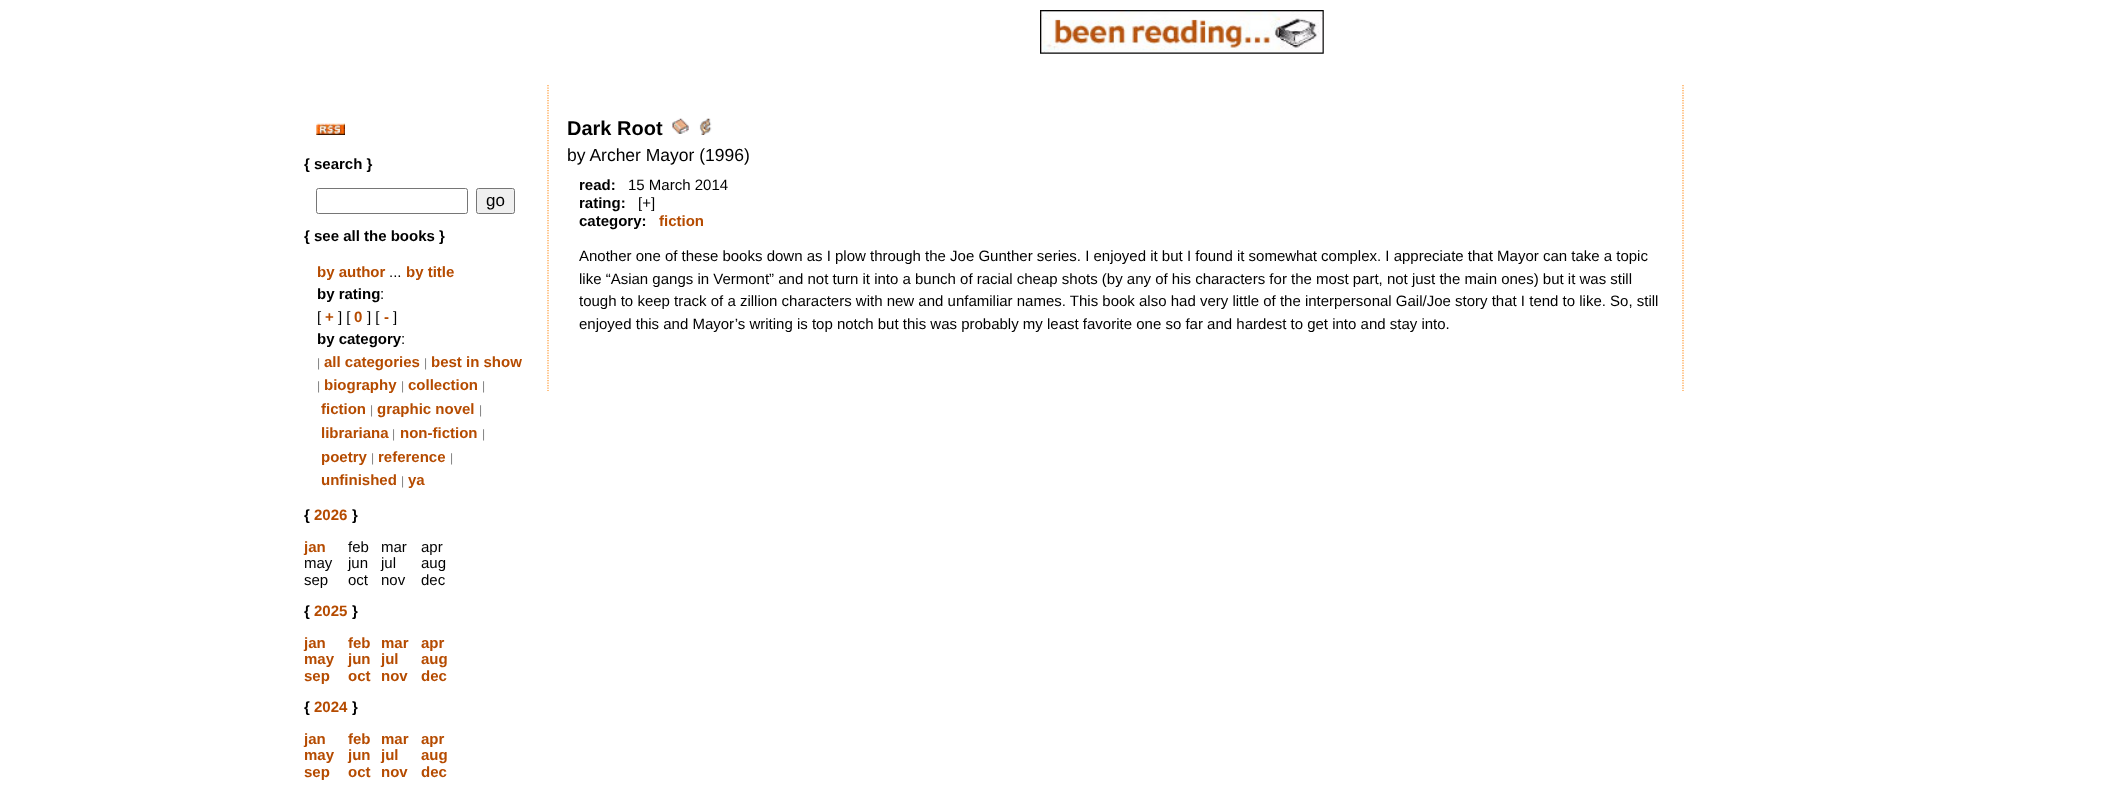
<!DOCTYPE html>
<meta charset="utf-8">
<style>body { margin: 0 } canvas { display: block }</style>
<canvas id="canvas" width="2120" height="803"></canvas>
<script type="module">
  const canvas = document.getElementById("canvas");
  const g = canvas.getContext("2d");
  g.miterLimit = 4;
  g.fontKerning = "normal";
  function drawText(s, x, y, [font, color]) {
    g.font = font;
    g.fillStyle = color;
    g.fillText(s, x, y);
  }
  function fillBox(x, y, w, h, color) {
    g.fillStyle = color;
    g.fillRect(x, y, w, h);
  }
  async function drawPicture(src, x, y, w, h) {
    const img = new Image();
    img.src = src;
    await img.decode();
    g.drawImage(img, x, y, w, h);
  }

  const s1 = ["bold 15px Liberation Sans", "#000000"];
  const s2 = ["17px Liberation Sans", "#000000"];
  const s3 = ["bold 15px Liberation Sans", "#B54B00"];
  const s4 = ["15px Liberation Sans", "#000000"];
  const s5 = ["12px Liberation Sans", "#808080"];
  const s6 = ["bold 20px Liberation Sans", "#000000"];
  const s7 = ["17.5px Liberation Sans", "#000000"];

  fillBox(0, 0, 2120, 803, "#FFFFFF");
  await drawPicture("pic1.png", 1040, 10, 284, 44);
  await drawPicture("pic2.png", 316, 123, 29, 12);
  drawText("{ search }", 304, 169, s1);
  g.beginPath();
  g.roundRect(316.5, 188.5, 151, 25, 2);
  g.strokeStyle = "#767676";
  g.stroke();
  g.fillStyle = "#EFEFEF";
  g.beginPath();
  g.roundRect(476.5, 188.5, 38, 25, 2);
  g.fill();
  g.stroke();
  drawText("go", 486, 206, s2);
  drawText("{ see all the books }", 304, 241, s1);
  drawText("by author", 317, 277, s3);
  drawText("...", 389, 277, s4);
  drawText("by title", 406, 277, s3);
  drawText("by rating", 317, 299, s1);
  drawText(":", 380, 299, s4);
  drawText("[", 317, 322, s4);
  drawText("+", 325, 322, s3);
  drawText("] [", 338, 322, s4);
  drawText("0", 354, 322, s3);
  drawText("] [", 367, 322, s4);
  drawText("-", 384, 322, s3);
  drawText("]", 393, 322, s4);
  drawText("by category", 317, 344, s1);
  drawText(":", 401, 344, s4);
  drawText("|", 317, 367, s5);
  drawText("all categories", 324, 367, s3);
  drawText("|", 424, 367, s5);
  drawText("best in show", 431, 367, s3);
  drawText("|", 317, 390, s5);
  drawText("biography", 324, 390, s3);
  drawText("|", 401, 390, s5);
  drawText("collection", 408, 390, s3);
  drawText("|", 482, 390, s5);
  drawText("fiction", 321, 414, s3);
  drawText("|", 370, 414, s5);
  drawText("graphic novel", 377, 414, s3);
  drawText("|", 479, 414, s5);
  drawText("librariana", 321, 438, s3);
  drawText("|", 392, 438, s5);
  drawText("non-fiction", 400, 438, s3);
  drawText("|", 482, 438, s5);
  drawText("poetry", 321, 462, s3);
  drawText("|", 371, 462, s5);
  drawText("reference", 378, 462, s3);
  drawText("|", 450, 462, s5);
  drawText("unfinished", 321, 485, s3);
  drawText("|", 401, 485, s5);
  drawText("ya", 408, 485, s3);
  drawText("{", 304, 520, s1);
  drawText("2026", 314, 520, s3);
  drawText("}", 352, 520, s1);
  drawText("jan", 304, 552, s3);
  drawText("feb", 348, 552, s4);
  drawText("mar", 381, 552, s4);
  drawText("apr", 421, 552, s4);
  drawText("may", 304, 568, s4);
  drawText("jun", 348, 568, s4);
  drawText("jul", 381, 568, s4);
  drawText("aug", 421, 568, s4);
  drawText("sep", 304, 585, s4);
  drawText("oct", 348, 585, s4);
  drawText("nov", 381, 585, s4);
  drawText("dec", 421, 585, s4);
  drawText("{", 304, 616, s1);
  drawText("2025", 314, 616, s3);
  drawText("}", 352, 616, s1);
  drawText("jan", 304, 648, s3);
  drawText("feb", 348, 648, s3);
  drawText("mar", 381, 648, s3);
  drawText("apr", 421, 648, s3);
  drawText("may", 304, 664, s3);
  drawText("jun", 348, 664, s3);
  drawText("jul", 381, 664, s3);
  drawText("aug", 421, 664, s3);
  drawText("sep", 304, 681, s3);
  drawText("oct", 348, 681, s3);
  drawText("nov", 381, 681, s3);
  drawText("dec", 421, 681, s3);
  drawText("{", 304, 712, s1);
  drawText("2024", 314, 712, s3);
  drawText("}", 352, 712, s1);
  drawText("jan", 304, 744, s3);
  drawText("feb", 348, 744, s3);
  drawText("mar", 381, 744, s3);
  drawText("apr", 421, 744, s3);
  drawText("may", 304, 760, s3);
  drawText("jun", 348, 760, s3);
  drawText("jul", 381, 760, s3);
  drawText("aug", 421, 760, s3);
  drawText("sep", 304, 777, s3);
  drawText("oct", 348, 777, s3);
  drawText("nov", 381, 777, s3);
  drawText("dec", 421, 777, s3);
  g.beginPath();
  g.moveTo(1683, 85);
  g.lineTo(1683, 391);
  g.strokeStyle = "#FF9933";
  g.lineWidth = 1.2;
  g.setLineDash([1.25, 1.25]);
  g.stroke();
  g.beginPath();
  g.moveTo(548, 85);
  g.lineTo(548, 391);
  g.stroke();
  drawText("Dark Root", 567, 135, s6);
  await drawPicture("pic3.png", 672, 118, 17, 16);
  await drawPicture("pic4.png", 699, 118, 13, 17);
  drawText("by Archer Mayor (1996)", 567, 161, s7);
  drawText("read:", 579, 190, s1);
  drawText("15 March 2014", 628, 190, s4);
  drawText("rating:", 579, 208, s1);
  drawText("[+]", 638, 208, s4);
  drawText("category:", 579, 226, s1);
  drawText("fiction", 659, 226, s3);
  drawText("Another one of these books down as I plow through the Joe Gunther series. I enjoyed it but I found it somewhat complex. I appreciate that Mayor can take a topic", 579, 261, s4);
  drawText("like “Asian gangs in Vermont” and not turn it into a bunch of racial cheap shots (by any of his characters for the most part, not just the main ones) but it was still", 579, 284, s4);
  drawText("tough to keep track of a zillion characters with new and unfamiliar names. This book also had very little of the interpersonal Gail/Joe story that I tend to like. So, still", 579, 306, s4);
  drawText("enjoyed this and Mayor’s writing is top notch but this was probably my least favorite one so far and hardest to get into and stay into.", 579, 329, s4);
</script>
